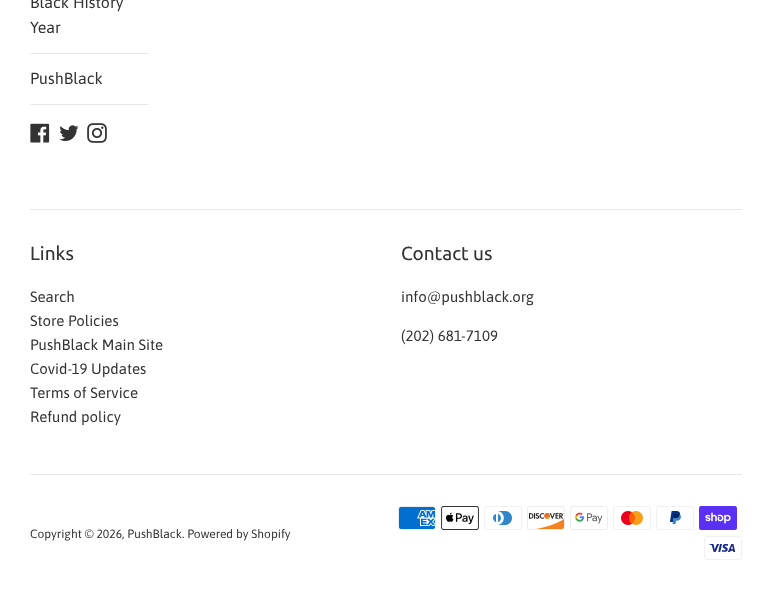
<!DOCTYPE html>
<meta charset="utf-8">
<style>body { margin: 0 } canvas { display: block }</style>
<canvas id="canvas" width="772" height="590"></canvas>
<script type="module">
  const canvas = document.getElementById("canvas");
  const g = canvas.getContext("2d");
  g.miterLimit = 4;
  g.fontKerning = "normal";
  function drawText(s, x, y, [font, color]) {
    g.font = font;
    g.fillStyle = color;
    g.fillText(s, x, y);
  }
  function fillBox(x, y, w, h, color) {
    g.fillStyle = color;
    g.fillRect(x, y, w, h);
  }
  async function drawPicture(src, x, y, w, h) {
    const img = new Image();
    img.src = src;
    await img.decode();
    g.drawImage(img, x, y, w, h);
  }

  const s1 = ["16px Asap", "#333333"];
  const s2 = ["19px Ubuntu", "#333333"];
  const s3 = ["15px Asap", "#333333"];
  const s4 = ["12px Asap", "#333333"];

  fillBox(0, 0, 772, 590, "#FFFFFF");
  fillBox(30, 53, 118, 1, "#E8E8E8");
  drawText("Black History", 30, 8, s1);
  drawText("Year", 30, 33, s1);
  fillBox(30, 104, 118, 1, "#E8E8E8");
  drawText("PushBlack", 30, 84, s1);
  await drawPicture("pic1.png", 30, 123, 20, 20);
  await drawPicture("pic2.png", 59, 125, 20, 16);
  await drawPicture("pic3.png", 87, 123, 20, 20);
  fillBox(30, 209, 712, 1, "#E8E8E8");
  drawText("Links", 30, 260, s2);
  drawText("Search", 30, 302, s3);
  drawText("Store Policies", 30, 326, s3);
  drawText("PushBlack Main Site", 30, 350, s3);
  drawText("Covid-19 Updates", 30, 374, s3);
  drawText("Terms of Service", 30, 398, s3);
  drawText("Refund policy", 30, 422, s3);
  drawText("Contact us", 401, 260, s2);
  drawText("info@pushblack.org", 401, 302, s3);
  drawText("(202) 681-7109", 401, 341, s3);
  fillBox(30, 474, 712, 1, "#E8E8E8");
  drawText("Copyright © 2026, PushBlack. Powered by Shopify", 30, 538, s4);
  await drawPicture("pic4.png", 398, 506, 38, 24);
  await drawPicture("pic5.png", 441, 506, 38, 24);
  await drawPicture("pic6.png", 484, 506, 38, 24);
  await drawPicture("pic7.png", 527, 506, 38, 24);
  await drawPicture("pic8.png", 570, 506, 38, 24);
  await drawPicture("pic9.png", 613, 506, 38, 24);
  await drawPicture("pic10.png", 656, 506, 38, 24);
  await drawPicture("pic11.png", 699, 506, 38, 24);
  await drawPicture("pic12.png", 704, 536, 38, 24);
</script>
